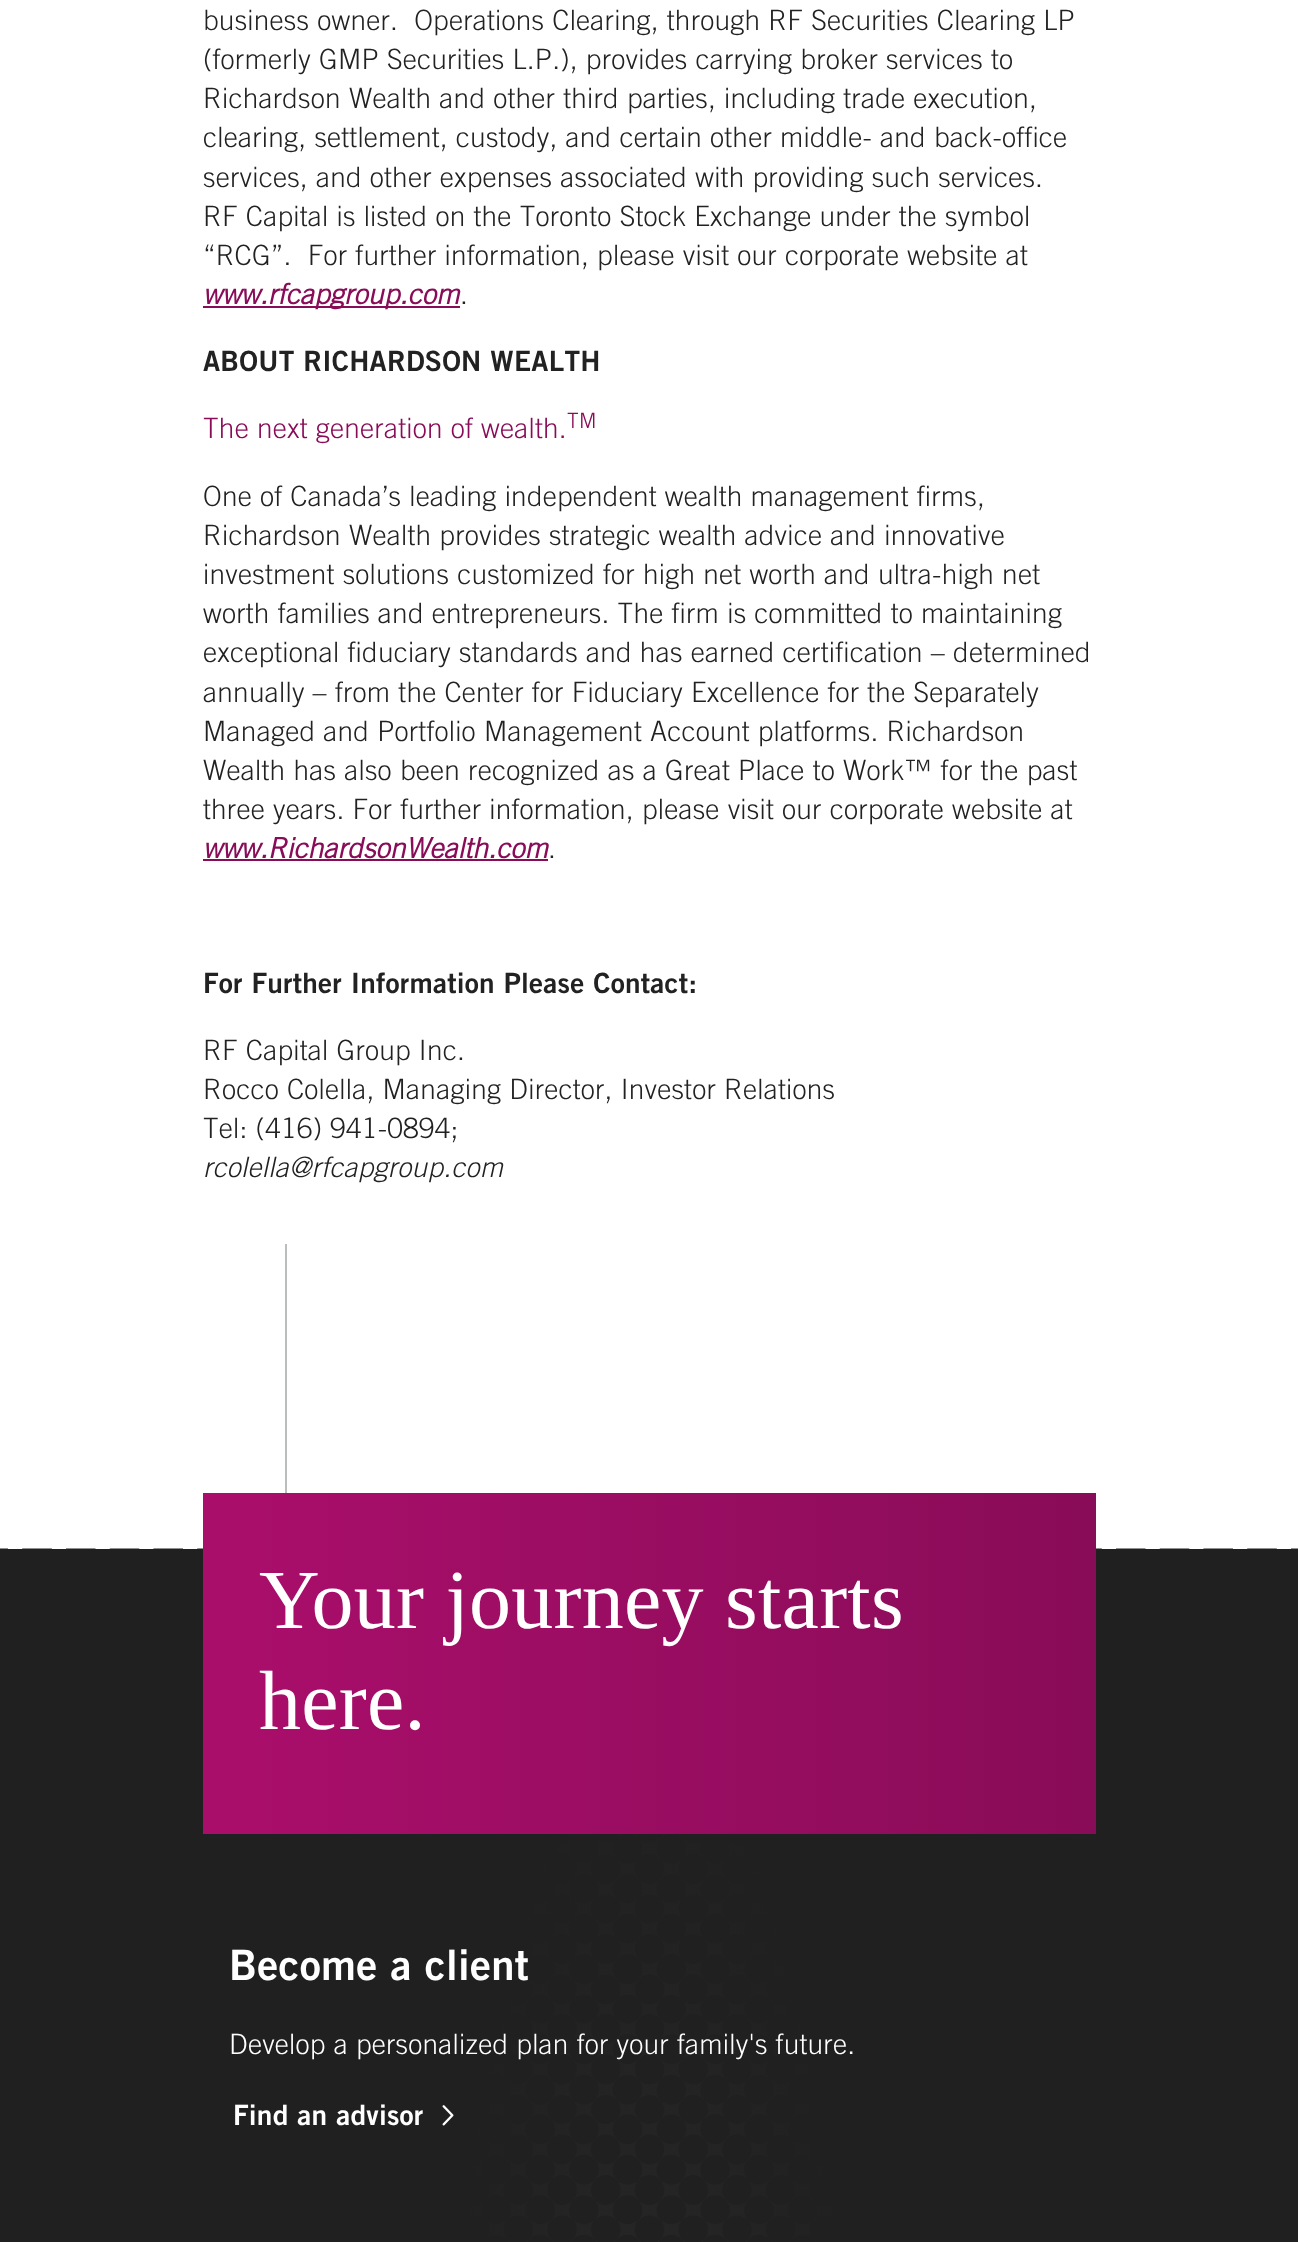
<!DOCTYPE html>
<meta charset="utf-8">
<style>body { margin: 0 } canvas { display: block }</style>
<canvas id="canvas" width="1298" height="2242"></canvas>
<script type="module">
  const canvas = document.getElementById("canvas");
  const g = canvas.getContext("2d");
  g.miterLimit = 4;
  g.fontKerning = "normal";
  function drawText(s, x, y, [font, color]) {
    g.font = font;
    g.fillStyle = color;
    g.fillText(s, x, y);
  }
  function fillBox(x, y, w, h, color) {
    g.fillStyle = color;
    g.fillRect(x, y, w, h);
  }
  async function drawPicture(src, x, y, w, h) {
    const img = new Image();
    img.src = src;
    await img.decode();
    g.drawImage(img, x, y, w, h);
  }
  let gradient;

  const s1 = ["28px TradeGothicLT", "#222222"];
  const s2 = ["italic bold 28px TradeGothicLT", "#890C58"];
  const s3 = ["28px 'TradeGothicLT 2'", "#222222"];
  const s4 = ["28px TradeGothicLT", "#890C58"];
  const s5 = ["21px TradeGothicLT", "#890C58"];
  const s6 = ["italic 28px TradeGothicLT", "#222222"];
  const s7 = ["84px Liberation Serif", "#FFFFFF"];
  const s8 = ["42px 'TradeGothicLT 2'", "#FFFFFF"];
  const s9 = ["28px TradeGothicLT", "#FFFFFF"];
  const s10 = ["28px 'TradeGothicLT 2'", "#FFFFFF"];

  fillBox(0, 0, 1298, 2242, "#FFFFFF");
  g.letterSpacing = "0.25px";
  drawText("business owner.  Operations Clearing, through RF Securities Clearing LP", 203, 30, s1);
  drawText("(formerly GMP Securities L.P.), provides carrying broker services to", 203, 69, s1);
  drawText("Richardson Wealth and other third parties, including trade execution,", 203, 108, s1);
  drawText("clearing, settlement, custody, and certain other middle- and back-office", 203, 147, s1);
  drawText("services, and other expenses associated with providing such services.", 203, 187, s1);
  drawText("RF Capital is listed on the Toronto Stock Exchange under the symbol", 203, 226, s1);
  drawText("“RCG”.  For further information, please visit our corporate website at", 203, 265, s1);
  fillBox(203, 306, 257, 2, "#890C58");
  drawText("www.rfcapgroup.com", 203, 304, s2);
  drawText(".", 460, 304, s1);
  drawText("ABOUT RICHARDSON WEALTH", 203, 371, s3);
  drawText("The next generation of wealth.", 203, 438, s4);
  drawText("TM", 567, 428, s5);
  drawText("One of Canada’s leading independent wealth management firms,", 203, 506, s1);
  drawText("Richardson Wealth provides strategic wealth advice and innovative", 203, 545, s1);
  drawText("investment solutions customized for high net worth and ultra-high net", 203, 584, s1);
  drawText("worth families and entrepreneurs. The firm is committed to maintaining", 203, 623, s1);
  drawText("exceptional fiduciary standards and has earned certification – determined", 203, 662, s1);
  drawText("annually – from the Center for Fiduciary Excellence for the Separately", 203, 702, s1);
  drawText("Managed and Portfolio Management Account platforms. Richardson", 203, 741, s1);
  drawText("Wealth has also been recognized as a Great Place to Work™ for the past", 203, 780, s1);
  drawText("three years. For further information, please visit our corporate website at", 203, 819, s1);
  drawText("www.RichardsonWealth.com", 203, 858, s2);
  fillBox(203, 859, 345, 2, "#890C58");
  drawText(".", 548, 858, s1);
  drawText("For Further Information Please Contact:", 203, 993, s3);
  drawText("RF Capital Group Inc.", 203, 1060, s1);
  drawText("Rocco Colella, Managing Director, Investor Relations", 203, 1099, s1);
  drawText("Tel: (416) 941-0894;", 203, 1138, s1);
  drawText("rcolella@rfcapgroup.com", 203, 1177, s6);
  fillBox(285, 1244, 2, 249, "#BBBCBC");
  await drawPicture("pic1.png", 0, 1548, 1298, 694);
  gradient = g.createRadialGradient(649, 521.21, 0, 649, 521.21, 266);
  gradient.addColorStop(0, "rgba(32, 32, 32, 0.93)");
  gradient.addColorStop(1, "#202020");
  g.fillStyle = gradient;
  g.beginPath();
  g.rect(0, 1549, 1298, 693);
  g.save();
  g.clip();
  g.scale(1, 1751 / 266);
  g.fillRect(0, 0, 1298, 341);
  g.restore();
  gradient = g.createLinearGradient(203, 1663, 1096, 1663);
  gradient.addColorStop(0, "#AA0E6B");
  gradient.addColorStop(1, "#890C58");
  g.fillStyle = gradient;
  g.fillRect(203, 1493, 893, 341);
  drawText("Your journey starts", 259, 1628, s7);
  drawText("here.", 259, 1729, s7);
  drawText("Become a client", 229, 1980, s8);
  drawText("Develop a personalized plan for your family's future.", 229, 2054, s9);
  drawText("Find an advisor", 233, 2125, s10);
  await drawPicture("pic2.png", 442, 2105, 12, 21);
</script>
